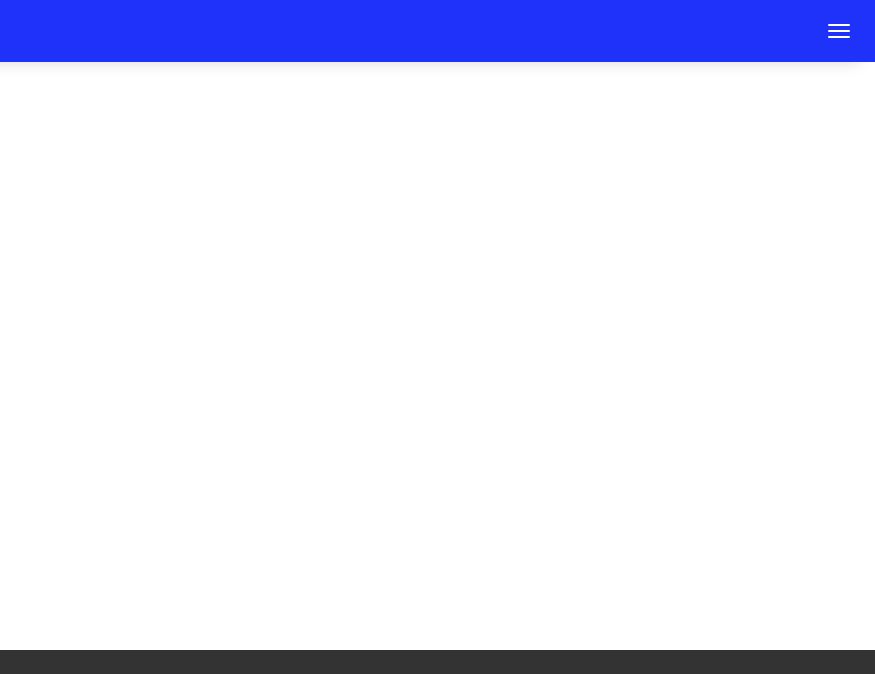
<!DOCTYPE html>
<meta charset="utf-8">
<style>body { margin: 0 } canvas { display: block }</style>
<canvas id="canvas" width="875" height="674"></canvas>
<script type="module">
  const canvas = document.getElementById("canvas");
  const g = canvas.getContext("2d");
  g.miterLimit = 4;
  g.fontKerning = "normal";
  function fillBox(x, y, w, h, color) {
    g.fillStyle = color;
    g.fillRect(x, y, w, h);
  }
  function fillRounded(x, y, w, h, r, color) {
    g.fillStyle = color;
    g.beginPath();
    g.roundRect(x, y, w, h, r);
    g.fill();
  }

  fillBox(0, 0, 875, 674, "#FFFFFF");
  g.fillStyle = "rgba(0, 0, 0, 0.15)";
  g.filter = "blur(7.5px)";
  g.beginPath();
  g.rect(-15, 0, 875, 62);
  g.fill();
  g.filter = "none";
  fillBox(0, 0, 875, 62, "#1E32FA");
  fillRounded(828, 24, 22, 2, 1, "#FFFFFF");
  fillRounded(828, 30, 22, 2, 1, "#FFFFFF");
  fillRounded(828, 36, 22, 2, 1, "#FFFFFF");
  fillBox(0, 650, 875, 24, "#333333");
</script>
